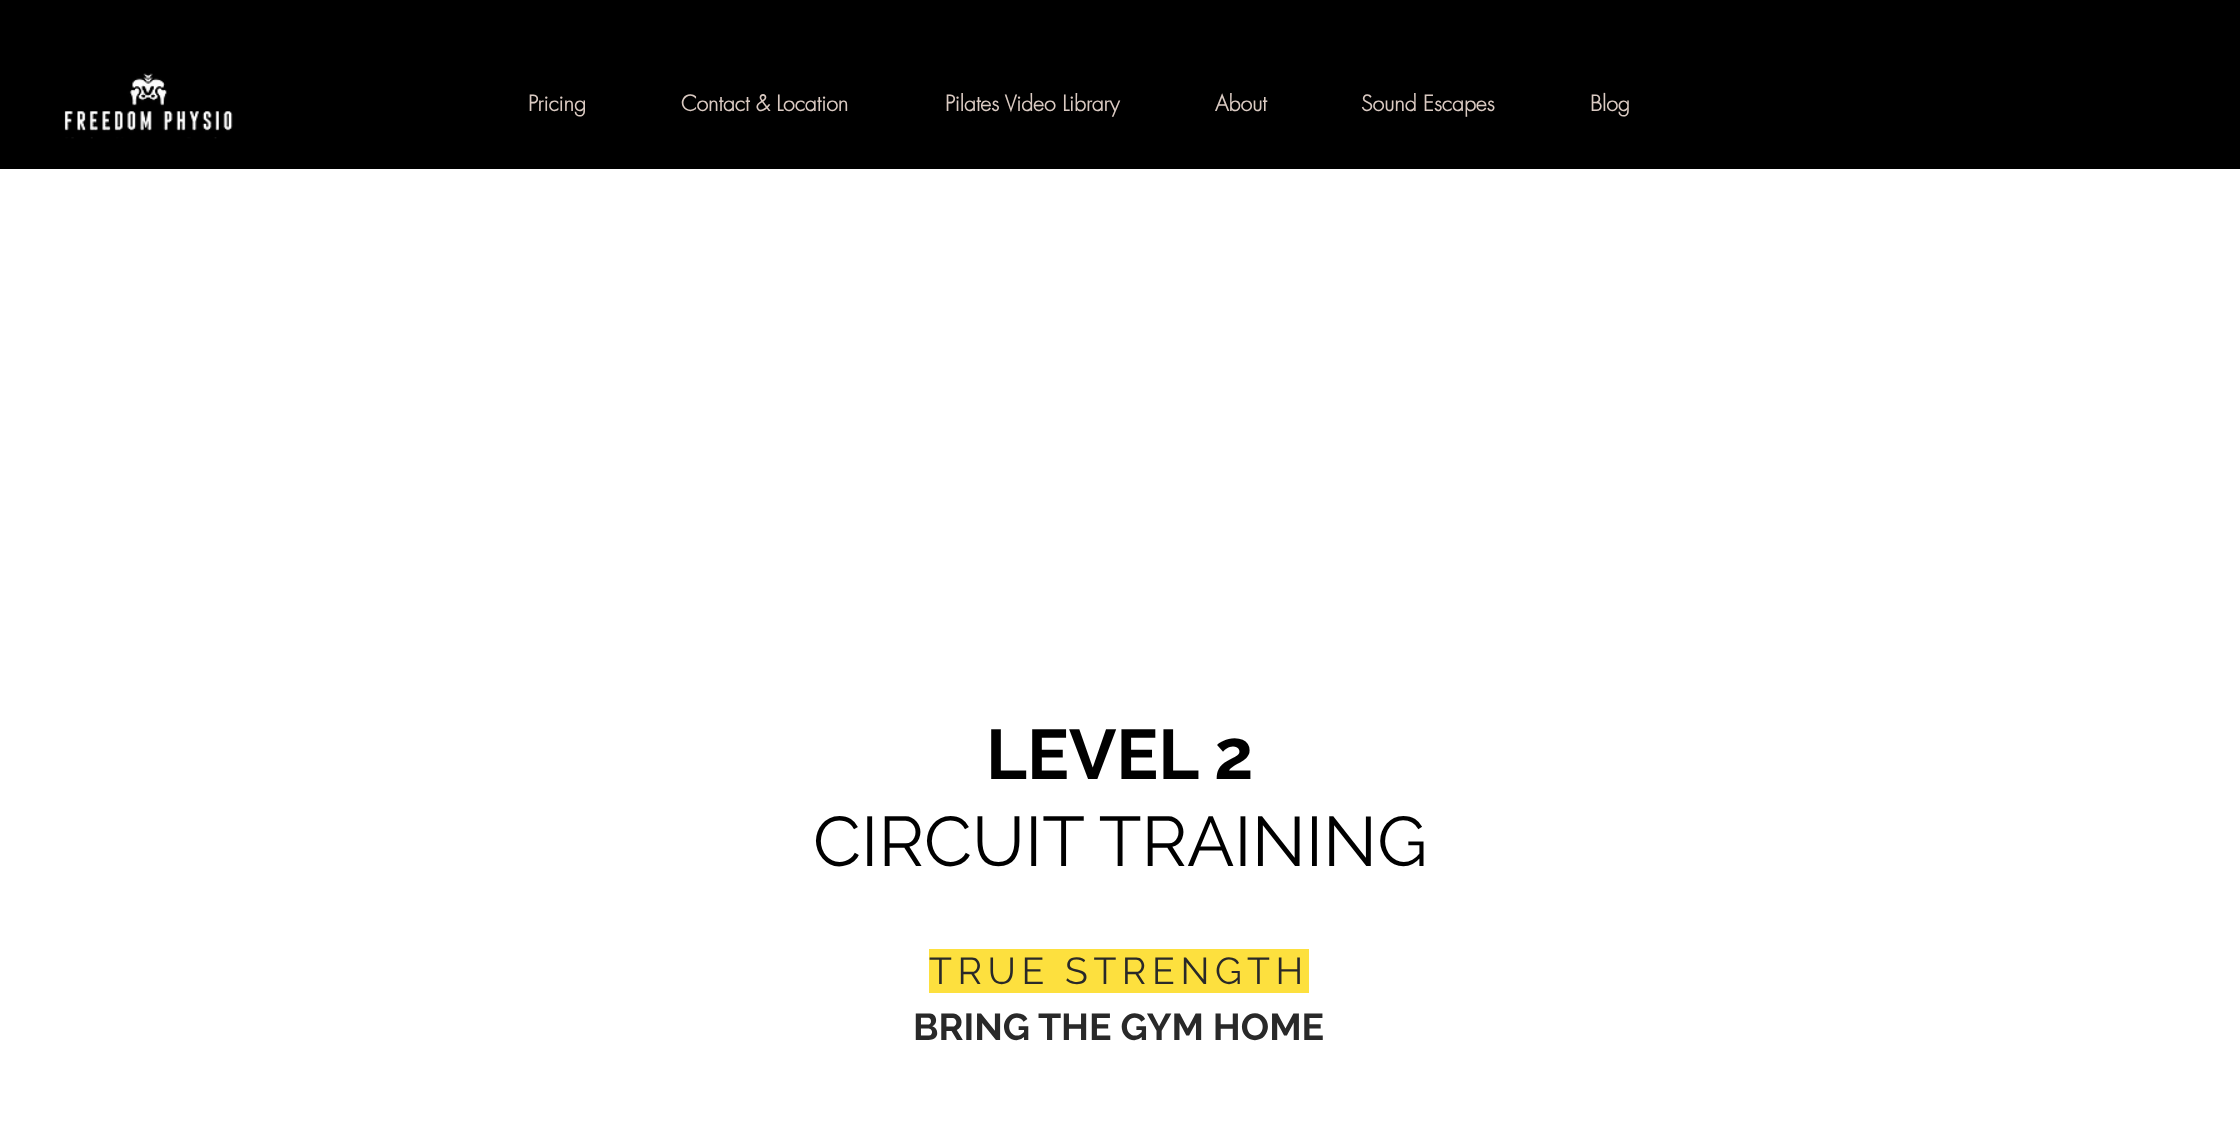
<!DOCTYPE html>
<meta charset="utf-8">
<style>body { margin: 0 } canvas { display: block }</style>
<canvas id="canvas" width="2240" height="1144"></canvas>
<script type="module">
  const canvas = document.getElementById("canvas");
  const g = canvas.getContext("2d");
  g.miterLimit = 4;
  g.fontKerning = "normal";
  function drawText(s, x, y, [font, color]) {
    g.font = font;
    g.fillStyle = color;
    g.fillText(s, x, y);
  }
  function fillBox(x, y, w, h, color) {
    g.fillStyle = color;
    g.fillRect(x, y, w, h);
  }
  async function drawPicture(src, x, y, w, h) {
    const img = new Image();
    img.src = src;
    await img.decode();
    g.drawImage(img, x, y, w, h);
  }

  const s1 = ["bold 21.25px futura", "#DACAC2"];
  const s2 = ["bold 70px Raleway", "#000000"];
  const s3 = ["70px Raleway", "#000000"];
  const s4 = ["37.5px Raleway", "#292929"];
  const s5 = ["bold 37.5px 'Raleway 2'", "#292929"];

  fillBox(0, 0, 2240, 1144, "#FFFFFF");
  fillBox(0, 0, 2240, 169, "#000000");
  await drawPicture("pic1.png", 64, 73, 169, 66);
  drawText("Pricing", 528, 111, s1);
  drawText("Contact & Location", 681, 111, s1);
  drawText("Pilates Video Library", 945, 111, s1);
  drawText("About", 1215, 111, s1);
  drawText("Sound Escapes", 1361, 111, s1);
  drawText("Blog", 1590, 111, s1);
  drawText("LEVEL 2", 986, 779, s2);
  drawText("CIRCUIT TRAINING", 813, 866, s3);
  fillBox(929, 949, 380, 44, "#FDE03E");
  g.letterSpacing = "5.6px";
  drawText("TRUE STRENGTH", 929, 984, s4);
  g.letterSpacing = "0px";
  drawText("BRING THE GYM HOME", 913, 1040, s5);
</script>
